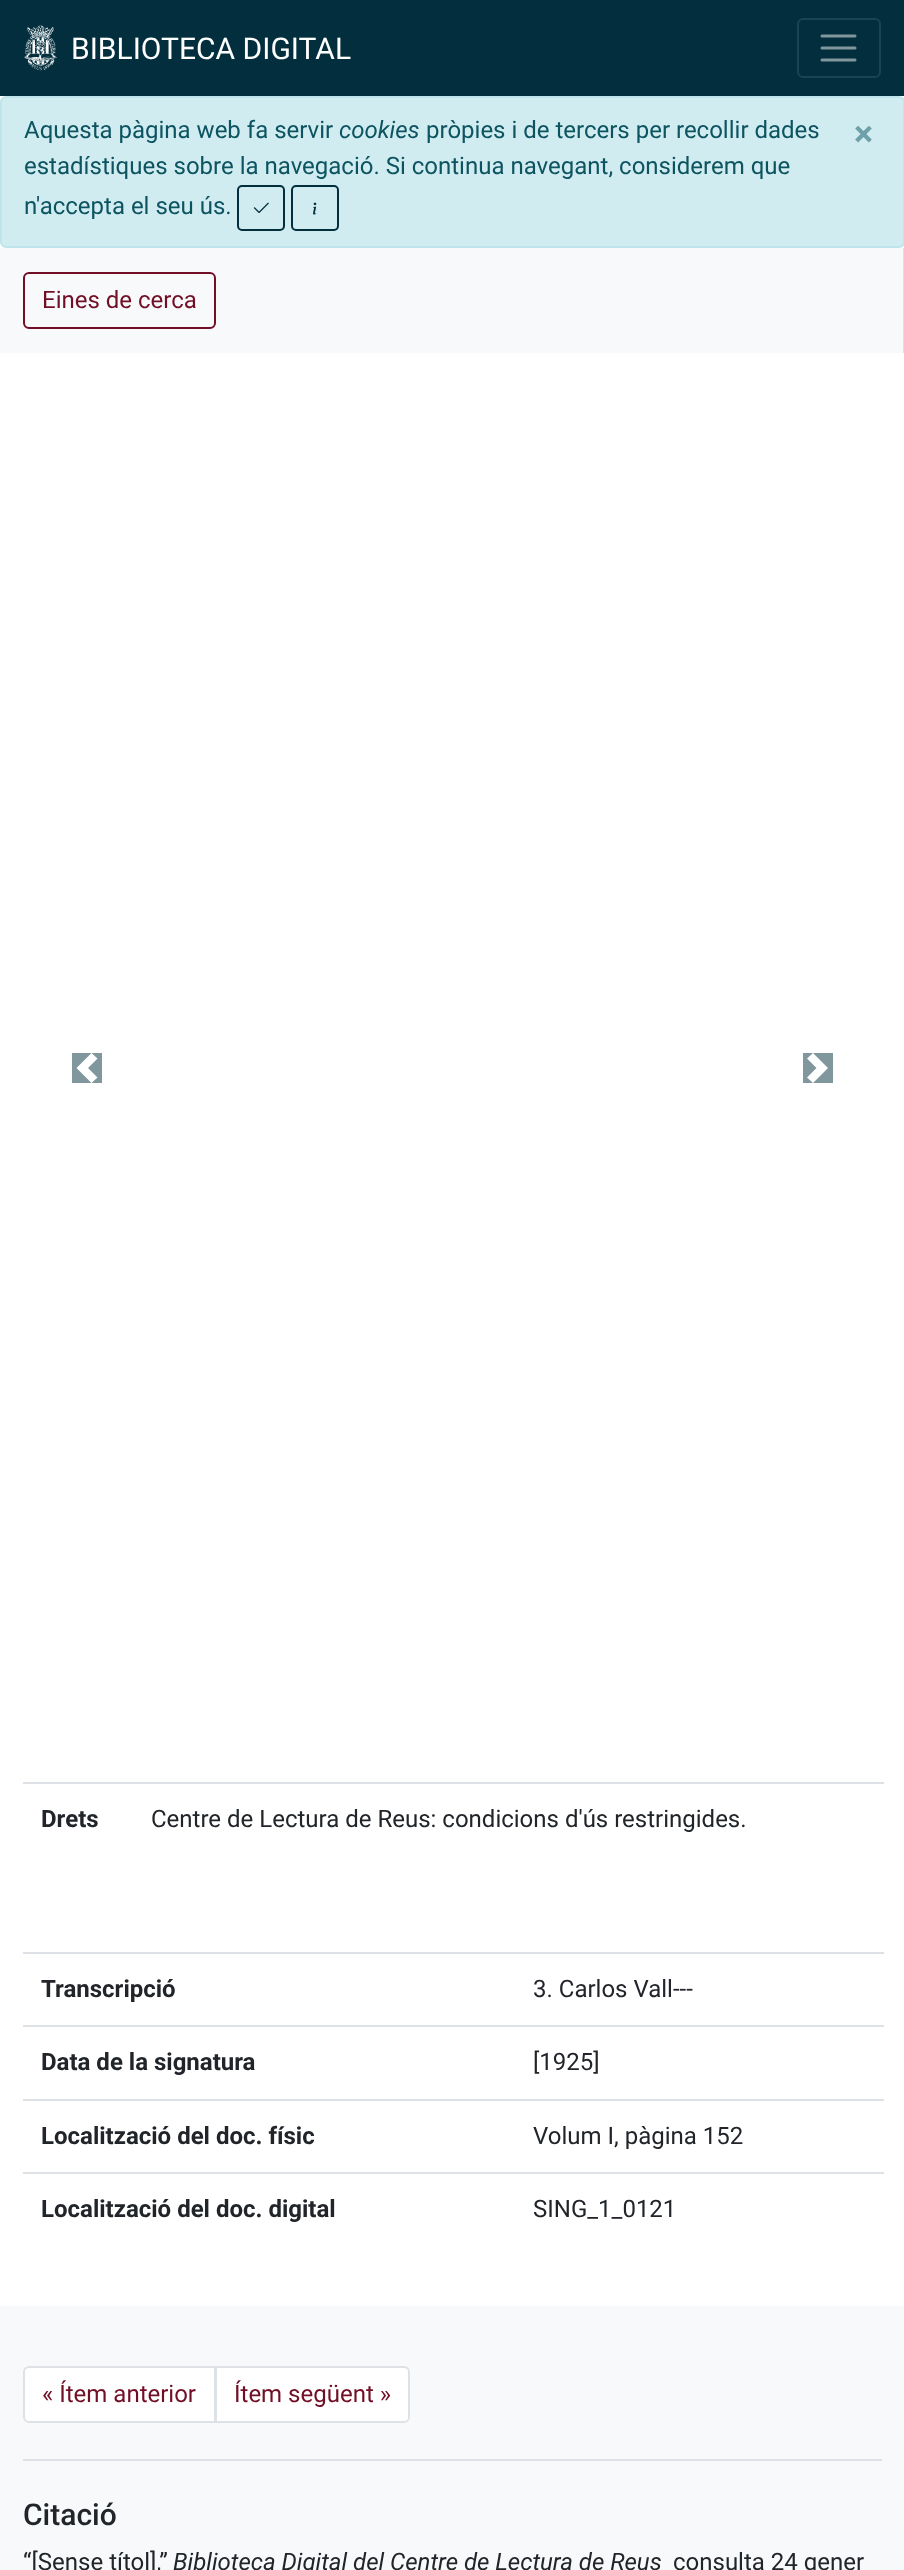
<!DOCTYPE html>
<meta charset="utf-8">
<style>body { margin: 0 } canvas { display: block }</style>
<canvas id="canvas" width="904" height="2570"></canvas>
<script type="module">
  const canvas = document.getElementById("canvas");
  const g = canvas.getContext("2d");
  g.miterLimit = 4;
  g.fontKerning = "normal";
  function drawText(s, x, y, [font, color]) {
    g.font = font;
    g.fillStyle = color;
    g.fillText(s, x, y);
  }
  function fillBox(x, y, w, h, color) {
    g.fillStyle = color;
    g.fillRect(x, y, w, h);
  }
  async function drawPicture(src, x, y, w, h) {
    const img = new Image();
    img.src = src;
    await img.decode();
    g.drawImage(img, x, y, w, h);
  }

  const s1 = ["30px Roboto", "#FFFFFF"];
  const s2 = ["24px Roboto", "#0C5460"];
  const s3 = ["italic 24px Roboto", "#0C5460"];
  const s4 = ["bold 36px Roboto", "#6FA0A9"];
  const s5 = ["24px Roboto", "#710F26"];
  const s6 = ["bold 24px Roboto", "#212529"];
  const s7 = ["24px Roboto", "#212529"];
  const s8 = ["500 30px Roboto", "#212529"];
  const s9 = ["italic 24px Roboto", "#212529"];

  fillBox(0, 0, 904, 2570, "#FFFFFF");
  fillBox(0, 0, 904, 96, "#022E3D");
  await drawPicture("pic1.png", 24, 25, 33, 46);
  drawText("BIBLIOTECA DIGITAL", 71, 59, s1);
  g.beginPath();
  g.roundRect(798, 19, 82, 58, 5);
  g.strokeStyle = "#1B4350";
  g.lineWidth = 2;
  g.stroke();
  g.beginPath();
  g.moveTo(822, 36);
  g.lineTo(855, 36);
  g.moveTo(822, 48);
  g.lineTo(855, 48);
  g.moveTo(822, 60);
  g.lineTo(855, 60);
  g.strokeStyle = "#81979E";
  g.lineWidth = 3;
  g.lineCap = "round";
  g.stroke();
  g.fillStyle = "#D1ECF1";
  g.beginPath();
  g.roundRect(1, 97, 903, 150, 5);
  g.fill();
  g.strokeStyle = "#BEE5EB";
  g.lineWidth = 2;
  g.stroke();
  drawText("Aquesta pàgina web fa servir", 24, 138, s2);
  drawText("cookies", 339, 138, s3);
  drawText("pròpies i de tercers per recollir dades", 426, 138, s2);
  drawText("×", 854, 146, s4);
  drawText("estadístiques sobre la navegació. Si continua navegant, considerem que", 24, 174, s2);
  drawText("n'accepta el seu ús.", 24, 214, s2);
  g.beginPath();
  g.roundRect(238, 186, 46, 44, 4);
  g.strokeStyle = "#022E3D";
  g.stroke();
  await drawPicture("pic2.png", 253, 202, 16, 11);
  g.beginPath();
  g.roundRect(292, 186, 46, 44, 4);
  g.stroke();
  await drawPicture("pic3.png", 313, 202, 4, 13);
  fillBox(0, 248, 903, 105, "#F8F9FA");
  fillBox(903, 248, 1, 105, "#DFE0E1");
  g.beginPath();
  g.roundRect(24, 273, 191, 55, 5);
  g.strokeStyle = "#710F26";
  g.stroke();
  drawText("Eines de cerca", 42, 308, s5);
  fillBox(72, 1053, 30, 30, "#81979E");
  g.fillStyle = "#FFFFFF";
  g.beginPath();
  g.moveTo(91.5, 1053);
  g.lineTo(76.5, 1068);
  g.lineTo(91.5, 1083);
  g.lineTo(97.5, 1077.5);
  g.lineTo(88, 1068);
  g.lineTo(97.5, 1058.5);
  g.closePath();
  g.fill();
  fillBox(803, 1053, 30, 30, "#81979E");
  g.fillStyle = "#FFFFFF";
  g.beginPath();
  g.moveTo(813, 1053);
  g.lineTo(807, 1058.5);
  g.lineTo(816.5, 1068);
  g.lineTo(807, 1077.5);
  g.lineTo(813, 1083);
  g.lineTo(828, 1068);
  g.closePath();
  g.fill();
  drawText("Drets", 41, 1827, s6);
  fillBox(23, 1782, 861, 2, "#DEE2E6");
  drawText("Centre de Lectura de Reus: condicions d'ús restringides.", 151, 1827, s7);
  drawText("Transcripció", 41, 1997, s6);
  fillBox(23, 1952, 861, 2, "#DEE2E6");
  drawText("3. Carlos Vall---", 533, 1997, s7);
  drawText("Data de la signatura", 41, 2070, s6);
  fillBox(23, 2025, 861, 2, "#DEE2E6");
  drawText("[1925]", 533, 2070, s7);
  drawText("Localització del doc. físic", 41, 2144, s6);
  fillBox(23, 2099, 861, 2, "#DEE2E6");
  drawText("Volum I, pàgina 152", 533, 2144, s7);
  drawText("Localització del doc. digital", 41, 2217, s6);
  fillBox(23, 2172, 861, 2, "#DEE2E6");
  drawText("SING_1_0121", 533, 2217, s7);
  fillBox(0, 2306, 904, 264, "#F8F9FA");
  g.fillStyle = "#FFFFFF";
  g.beginPath();
  g.roundRect(24, 2367, 191, 55, [5, 0, 0, 5]);
  g.fill();
  g.strokeStyle = "#DEE2E6";
  g.stroke();
  drawText("« Ítem anterior", 42, 2402, s5);
  g.fillStyle = "#FFFFFF";
  g.beginPath();
  g.roundRect(216, 2367, 193, 55, [0, 5, 5, 0]);
  g.fill();
  g.stroke();
  drawText("Ítem següent »", 234, 2402, s5);
  fillBox(23, 2459, 859, 2, "#DEE2E6");
  drawText("Citació", 23, 2525, s8);
  drawText("“[Sense títol],”", 23, 2570, s7);
  drawText("Biblioteca Digital del Centre de Lectura de Reus", 173, 2570, s9);
  drawText("consulta 24 gener", 673, 2570, s7);
</script>
